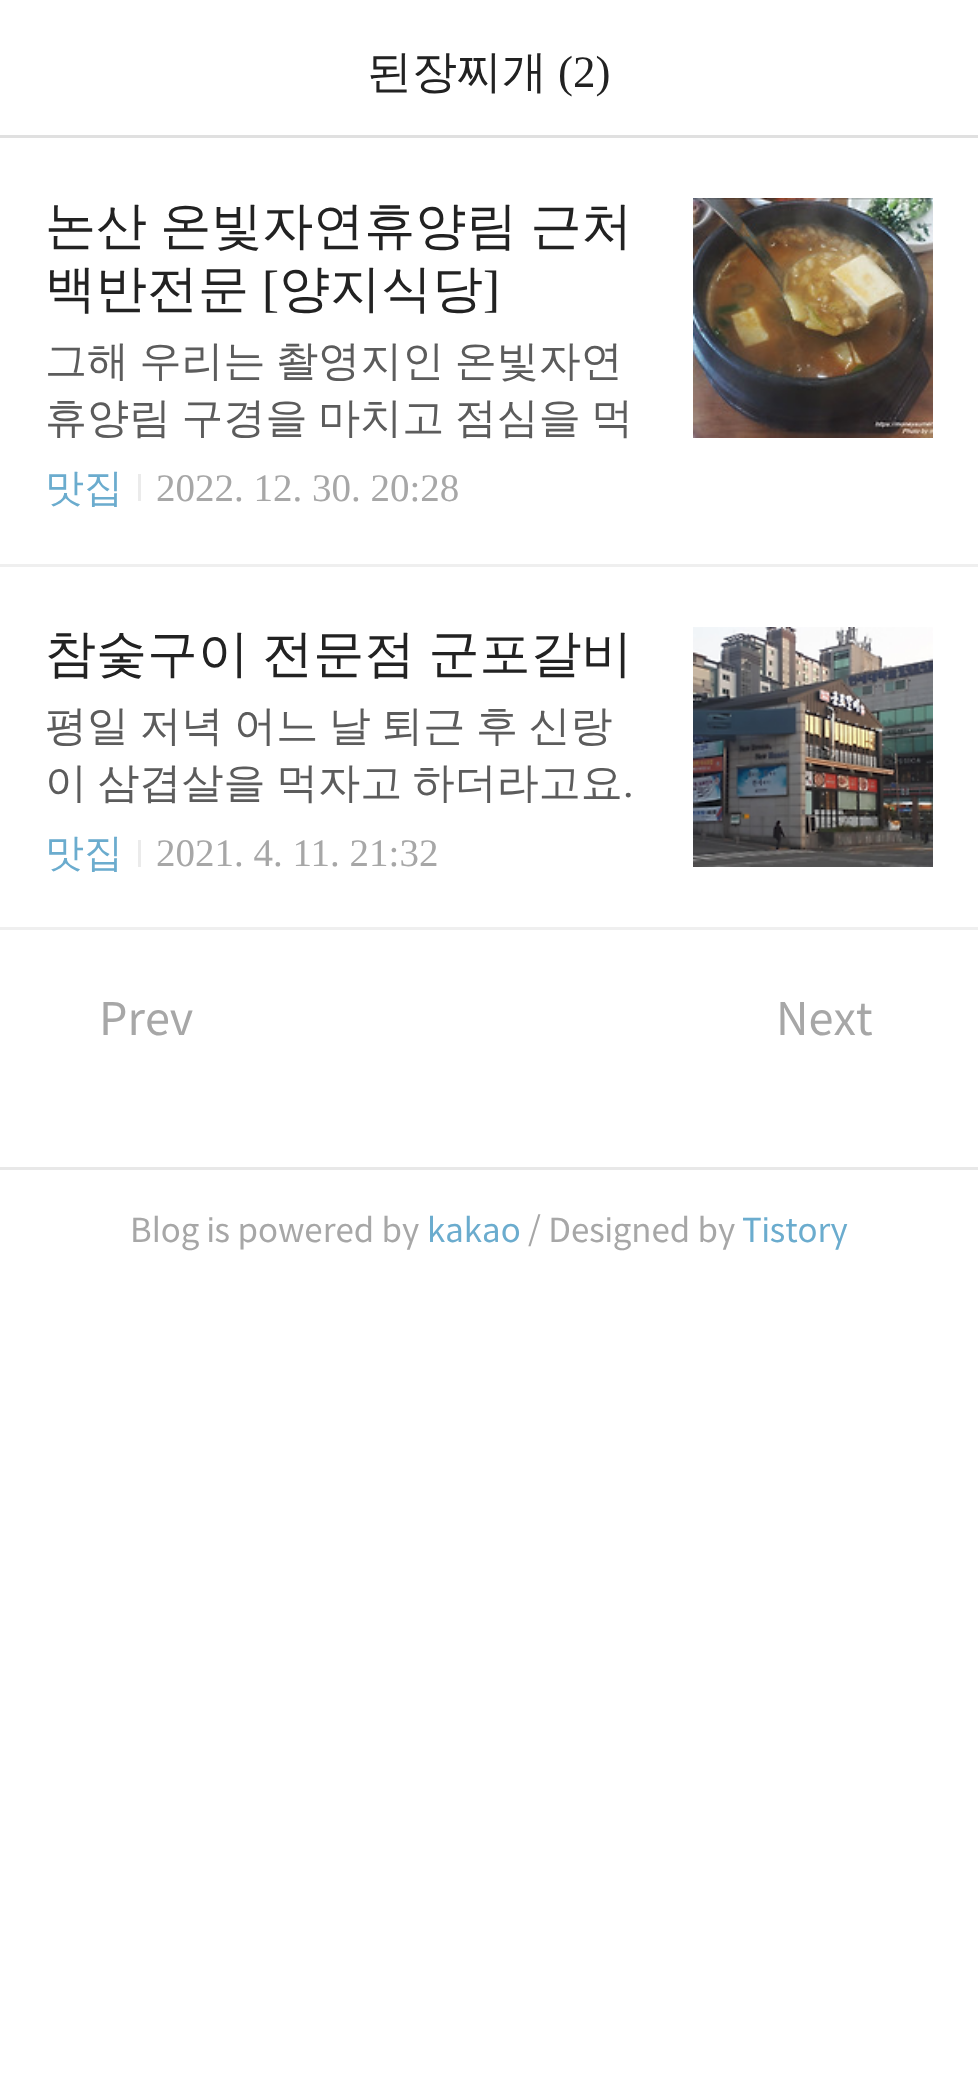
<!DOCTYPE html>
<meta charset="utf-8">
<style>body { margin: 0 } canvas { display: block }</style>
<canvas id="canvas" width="978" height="2091"></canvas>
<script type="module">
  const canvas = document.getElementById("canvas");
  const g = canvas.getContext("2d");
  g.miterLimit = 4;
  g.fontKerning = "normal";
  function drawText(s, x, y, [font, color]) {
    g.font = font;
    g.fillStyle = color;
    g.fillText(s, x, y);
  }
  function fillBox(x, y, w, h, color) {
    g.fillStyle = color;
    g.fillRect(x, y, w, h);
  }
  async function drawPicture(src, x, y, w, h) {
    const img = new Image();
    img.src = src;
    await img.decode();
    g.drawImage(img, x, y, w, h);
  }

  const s1 = ["500 45px WenQuanYi Zen Hei", "#222222"];
  const s2 = ["45px Liberation Serif", "#222222"];
  const s3 = ["500 51px WenQuanYi Zen Hei", "#222222"];
  const s4 = ["51px Liberation Serif", "#222222"];
  const s5 = ["500 42px WenQuanYi Zen Hei", "#5C5C5C"];
  const s6 = ["500 39px WenQuanYi Zen Hei", "#6BACCE"];
  const s7 = ["39px Liberation Serif", "#A7A7A7"];
  const s8 = ["42px Liberation Serif", "#5C5C5C"];
  const s9 = ["45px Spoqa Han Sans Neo", "#A7A7A7"];
  const s10 = ["33px Spoqa Han Sans Neo", "#A7A7A7"];
  const s11 = ["33px Spoqa Han Sans Neo", "#6BACCE"];

  fillBox(0, 0, 978, 2091, "#FFFFFF");
  fillBox(0, 135, 978, 3, "#E0E0E0");
  drawText("된장찌개", 367, 87, s1);
  drawText("(2)", 558, 87, s2);
  fillBox(0, 564, 978, 3, "#EFEFEF");
  g.wordSpacing = "-2px";
  drawText("논산 온빛자연휴양림 근처", 45, 243, s3);
  g.wordSpacing = "0px";
  drawText("백반전문", 45, 306, s3);
  drawText("[", 262, 306, s4);
  drawText("양지식당", 279, 306, s3);
  drawText("]", 483, 306, s4);
  g.wordSpacing = "-2px";
  drawText("그해 우리는 촬영지인 온빛자연", 45, 375, s5);
  drawText("휴양림 구경을 마치고 점심을 먹", 45, 432, s5);
  await drawPicture("pic1.png", 693, 198, 240, 240);
  g.wordSpacing = "0px";
  drawText("맛집", 45, 501, s6);
  fillBox(138, 474, 3, 27, "#EBEBEB");
  drawText("2022. 12. 30. 20:28", 156, 501, s7);
  fillBox(0, 927, 978, 3, "#EFEFEF");
  g.wordSpacing = "-2px";
  drawText("참숯구이 전문점 군포갈비", 45, 671, s3);
  drawText("평일 저녁 어느 날 퇴근 후 신랑", 45, 740, s5);
  drawText("이 삼겹살을 먹자고 하더라고요", 45, 797, s5);
  g.wordSpacing = "0px";
  drawText(".", 623, 797, s8);
  await drawPicture("pic2.png", 693, 627, 240, 240);
  drawText("맛집", 45, 866, s6);
  fillBox(138, 840, 3, 27, "#EBEBEB");
  drawText("2021. 4. 11. 21:32", 156, 866, s7);
  drawText("Prev", 99, 1035, s9);
  drawText("Next", 776, 1035, s9);
  fillBox(0, 1167, 978, 3, "#E8E8E8");
  drawText("Blog is powered by", 130, 1242, s10);
  drawText("kakao", 427, 1242, s11);
  drawText("/ Designed by", 528, 1242, s10);
  drawText("Tistory", 742, 1242, s11);
</script>
